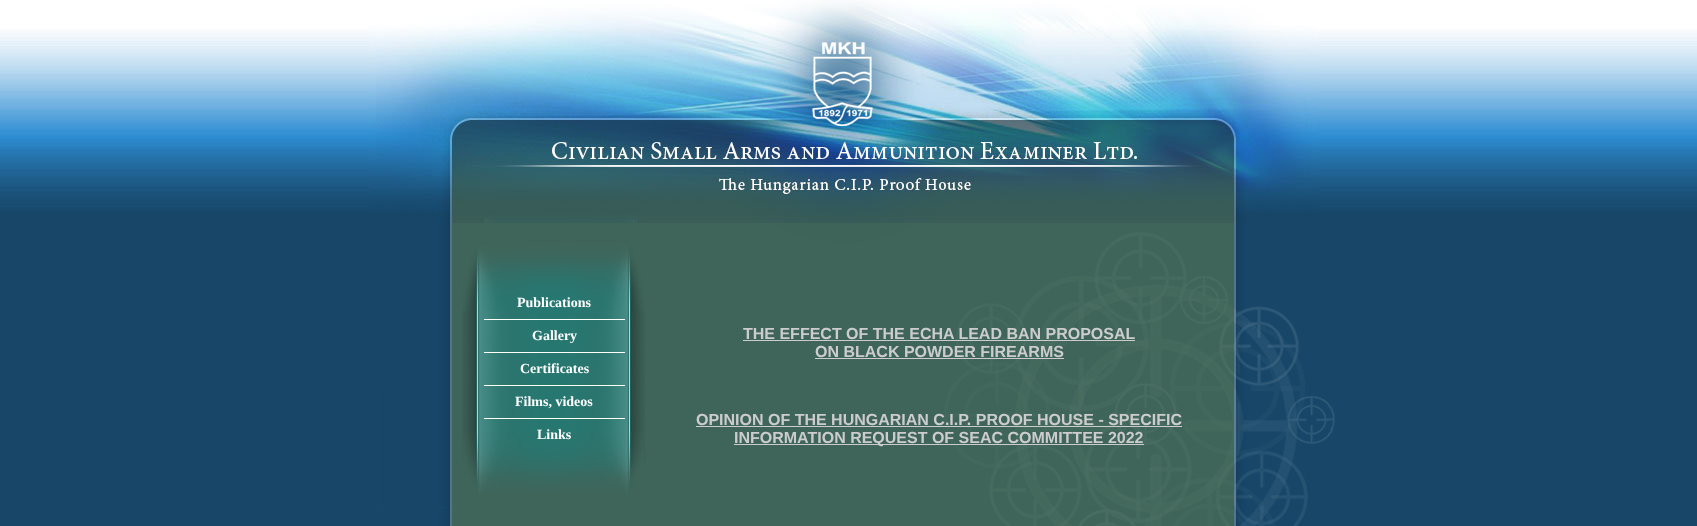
<!DOCTYPE html>
<meta charset="utf-8">
<style>body { margin: 0 } canvas { display: block }</style>
<canvas id="canvas" width="1697" height="526"></canvas>
<script type="module">
  const canvas = document.getElementById("canvas");
  const g = canvas.getContext("2d");
  g.miterLimit = 4;
  g.fontKerning = "normal";
  function drawText(s, x, y, [font, color]) {
    g.font = font;
    g.fillStyle = color;
    g.fillText(s, x, y);
  }
  function fillBox(x, y, w, h, color) {
    g.fillStyle = color;
    g.fillRect(x, y, w, h);
  }
  async function drawPicture(src, x, y, w, h) {
    const img = new Image();
    img.src = src;
    await img.decode();
    g.drawImage(img, x, y, w, h);
  }

  const s1 = ["bold 14px Liberation Serif", "#FFFFFF"];
  const s2 = ["bold 16px Liberation Sans", "#CCCCCC"];

  fillBox(0, 0, 1697, 526, "#FFFFFF");
  await drawPicture("pic1.png", 0, 29, 1697, 194);
  await drawPicture("pic2.png", 368, 0, 950, 223);
  fillBox(0, 223, 1697, 303, "#174668");
  await drawPicture("pic3.png", 376, 223, 959, 303);
  await drawPicture("pic4.png", 462, 311, 183, 151);
  await drawPicture("pic5.png", 462, 241, 183, 35);
  await drawPicture("pic6.png", 462, 276, 183, 35);
  drawText("Publications", 517, 307, s1);
  fillBox(484, 319, 141, 1, "#FFFFFF");
  drawText("Gallery", 532, 340, s1);
  fillBox(484, 352, 141, 1, "#FFFFFF");
  drawText("Certificates", 520, 373, s1);
  fillBox(484, 385, 141, 1, "#FFFFFF");
  drawText("Films, videos", 515, 406, s1);
  fillBox(484, 418, 141, 1, "#FFFFFF");
  await drawPicture("pic7.png", 463, 432, 181, 30);
  drawText("Links", 537, 439, s1);
  await drawPicture("pic8.png", 462, 462, 183, 32);
  drawText("THE EFFECT OF THE ECHA LEAD BAN PROPOSAL", 743, 339, s2);
  fillBox(743, 340, 392, 1, "#CCCCCC");
  drawText("ON BLACK POWDER FIREARMS", 815, 357, s2);
  fillBox(815, 358, 249, 1, "#CCCCCC");
  drawText("OPINION OF THE HUNGARIAN C.I.P. PROOF HOUSE - SPECIFIC", 696, 425, s2);
  fillBox(696, 426, 486, 1, "#CCCCCC");
  fillBox(734, 444, 410, 1, "#CCCCCC");
  drawText("INFORMATION REQUEST OF SEAC COMMITTEE 2022", 734, 443, s2);
</script>
